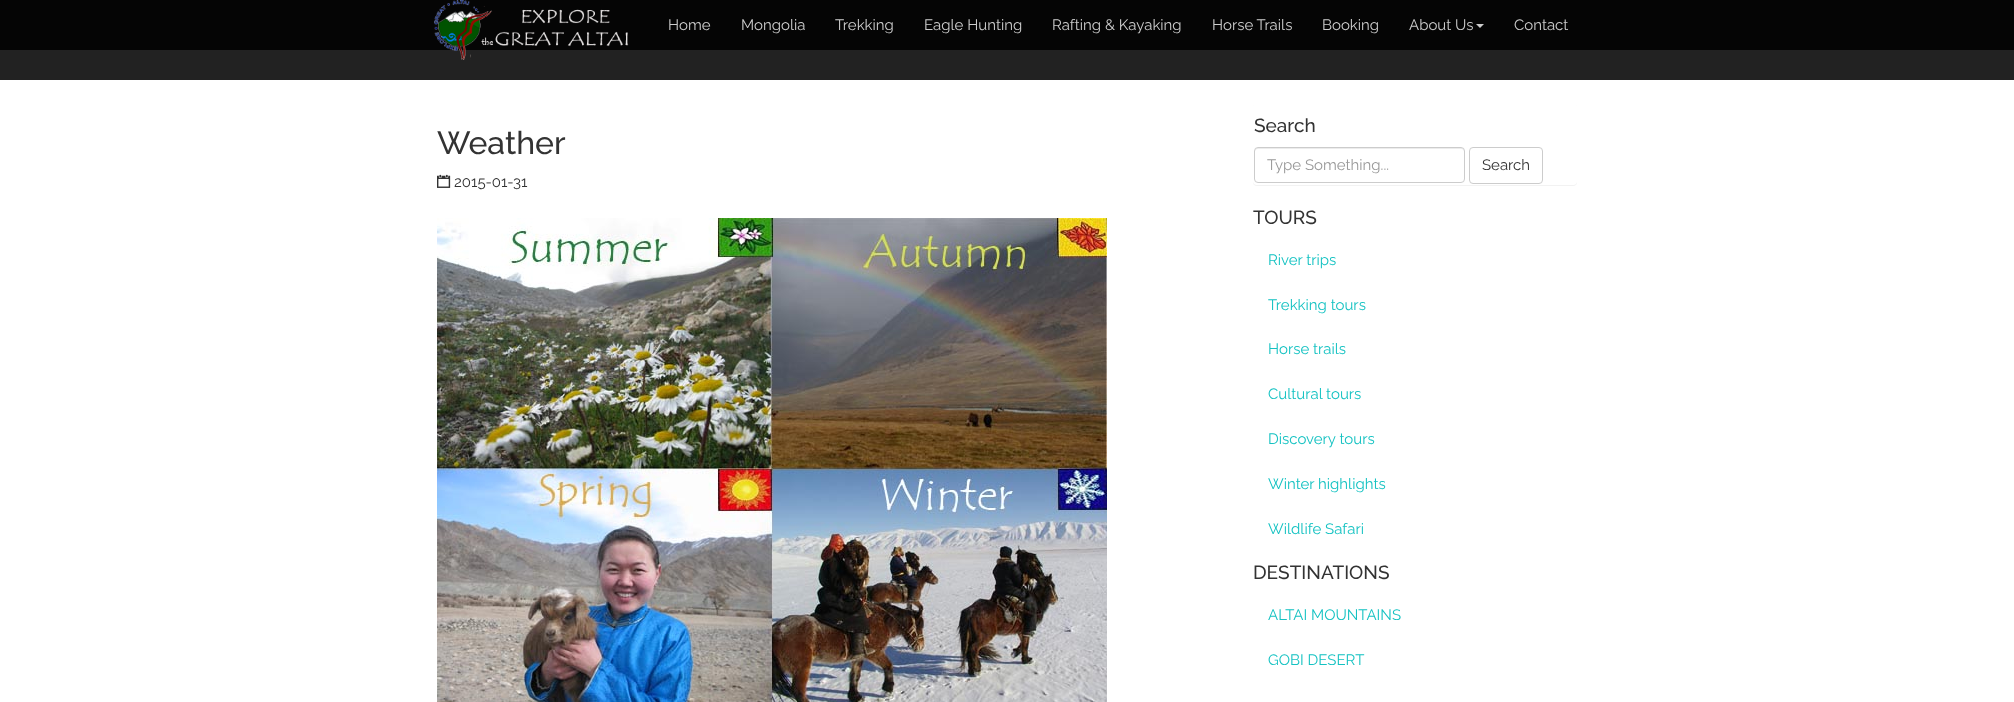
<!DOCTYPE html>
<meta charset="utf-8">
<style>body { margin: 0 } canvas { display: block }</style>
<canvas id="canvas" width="2014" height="702"></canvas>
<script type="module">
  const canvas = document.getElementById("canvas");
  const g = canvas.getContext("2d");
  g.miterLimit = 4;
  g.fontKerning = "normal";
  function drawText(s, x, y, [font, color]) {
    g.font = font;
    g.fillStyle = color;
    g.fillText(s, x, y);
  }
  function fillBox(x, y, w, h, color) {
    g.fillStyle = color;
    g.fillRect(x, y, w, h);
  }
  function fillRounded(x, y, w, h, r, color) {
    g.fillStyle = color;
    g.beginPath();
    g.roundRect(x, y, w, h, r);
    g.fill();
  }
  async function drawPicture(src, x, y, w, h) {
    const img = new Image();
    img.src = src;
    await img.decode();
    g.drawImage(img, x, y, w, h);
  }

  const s1 = ["15px Raleway", "#CDCDCD"];
  const s2 = ["500 32px Raleway", "#333333"];
  const s3 = ["15px Raleway", "#333333"];
  const s4 = ["500 19px Raleway", "#333333"];
  const s5 = ["15px Raleway", "#999999"];
  const s6 = ["15px Raleway", "#14C2C2"];

  fillBox(0, 0, 2014, 702, "#222222");
  fillBox(0, 0, 2014, 50, "#050505");
  await drawPicture("pic1.png", 434, 0, 195, 60);
  drawText("Home", 668, 30, s1);
  drawText("Mongolia", 741, 30, s1);
  drawText("Trekking", 835, 30, s1);
  drawText("Eagle Hunting", 924, 30, s1);
  drawText("Rafting & Kayaking", 1052, 30, s1);
  drawText("Horse Trails", 1212, 30, s1);
  drawText("Booking", 1322, 30, s1);
  drawText("About Us", 1409, 30, s1);
  g.beginPath();
  g.moveTo(1476, 24);
  g.lineTo(1484, 24);
  g.lineTo(1480, 28);
  g.closePath();
  g.fill();
  drawText("Contact", 1514, 30, s1);
  fillBox(0, 80, 2014, 622, "#FFFFFF");
  drawText("Weather", 437, 154, s2);
  await drawPicture("pic2.png", 437, 174, 14, 14);
  drawText("2015-01-31", 454, 187, s3);
  await drawPicture("pic3.png", 437, 218, 670, 484);
  g.fillStyle = "rgba(0, 0, 0, 0.05)";
  g.filter = "blur(0.5px)";
  g.beginPath();
  g.roundRect(1253, 104, 324, 82, 4);
  g.fill();
  g.filter = "none";
  fillRounded(1253, 103, 324, 82, 4, "#FFFFFF");
  drawText("Search", 1254, 132, s4);
  g.fillStyle = "#ECECEC";
  g.beginPath();
  g.moveTo(1258, 149);
  g.lineTo(1461, 149);
  g.bezierCurveTo(1463, 149, 1464, 150, 1464, 152);
  g.lineTo(1464, 151);
  g.bezierCurveTo(1464, 149, 1463, 148, 1461, 148);
  g.lineTo(1258, 148);
  g.bezierCurveTo(1256, 148, 1255, 149, 1255, 151);
  g.lineTo(1255, 152);
  g.bezierCurveTo(1255, 150, 1256, 149, 1258, 149);
  g.closePath();
  g.fill();
  g.beginPath();
  g.roundRect(1254.5, 147.5, 210, 35, 3.5);
  g.strokeStyle = "#CCCCCC";
  g.stroke();
  drawText("Type Something...", 1267, 170, s5);
  g.beginPath();
  g.roundRect(1469.5, 147.5, 73, 36, 3.5);
  g.stroke();
  drawText("Search", 1482, 170, s3);
  drawText("TOURS", 1253, 224, s4);
  drawText("River trips", 1268, 265, s6);
  drawText("Trekking tours", 1268, 310, s6);
  drawText("Horse trails", 1268, 354, s6);
  drawText("Cultural tours", 1268, 399, s6);
  drawText("Discovery tours", 1268, 444, s6);
  drawText("Winter highlights", 1268, 489, s6);
  drawText("Wildlife Safari", 1268, 534, s6);
  drawText("DESTINATIONS", 1253, 579, s4);
  drawText("ALTAI MOUNTAINS", 1268, 620, s6);
  drawText("GOBI DESERT", 1268, 665, s6);
</script>
